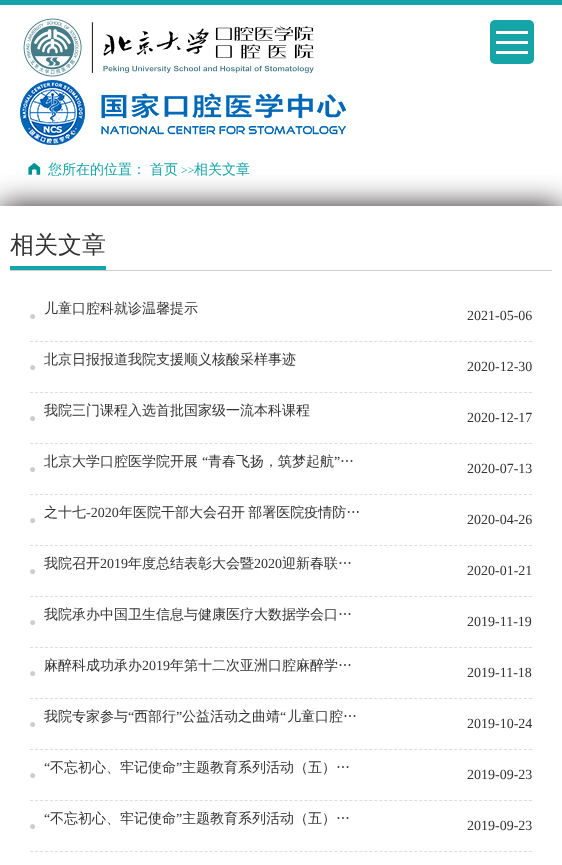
<!DOCTYPE html>
<meta charset="utf-8">
<style>body { margin: 0 } canvas { display: block }</style>
<canvas id="canvas" width="562" height="865"></canvas>
<script type="module">
  const canvas = document.getElementById("canvas");
  const g = canvas.getContext("2d");
  g.miterLimit = 4;
  g.fontKerning = "normal";
  function drawText(s, x, y, [font, color]) {
    g.font = font;
    g.fillStyle = color;
    g.fillText(s, x, y);
  }
  function fillBox(x, y, w, h, color) {
    g.fillStyle = color;
    g.fillRect(x, y, w, h);
  }
  function fillRounded(x, y, w, h, r, color) {
    g.fillStyle = color;
    g.beginPath();
    g.roundRect(x, y, w, h, r);
    g.fill();
  }
  async function drawPicture(src, x, y, w, h) {
    const img = new Image();
    img.src = src;
    await img.decode();
    g.drawImage(img, x, y, w, h);
  }

  const s1 = ["500 14px WenQuanYi Zen Hei", "#15A4A8"];
  const s2 = ["12px Liberation Serif", "#15A4A8"];
  const s3 = ["500 24px WenQuanYi Zen Hei", "#333333"];
  const s4 = ["500 14px WenQuanYi Zen Hei", "#333333"];
  const s5 = ["14px Liberation Serif", "#333333"];

  fillBox(0, 0, 562, 865, "#FFFFFF");
  fillBox(0, 0, 562, 5, "#15A4A8");
  await drawPicture("pic1.png", 23, 18, 291, 59);
  await drawPicture("pic2.png", 20, 80, 326, 65);
  fillRounded(490, 20, 44, 44, 5, "#15A4A8");
  fillBox(496, 41, 32, 3, "#FFFFFF");
  fillBox(496, 31, 32, 3, "#FFFFFF");
  fillBox(496, 51, 32, 3, "#FFFFFF");
  await drawPicture("pic3.png", 28, 163, 13, 12);
  drawText("您所在的位置：", 48, 174, s1);
  drawText("首页", 150, 174, s1);
  drawText(">>", 181, 174, s2);
  drawText("相关文章", 194, 174, s1);
  g.save();
  g.beginPath();
  g.rect(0, 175, 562, 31);
  g.clip();
  g.fillStyle = "#241D20";
  g.filter = "blur(15px)";
  g.beginPath();
  g.rect(0, 206, 562, 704);
  g.fill();
  g.filter = "none";
  g.restore();
  fillBox(10, 270, 542, 1, "#CCCCCC");
  drawText("相关文章", 10, 253, s3);
  fillBox(10, 266, 96, 4, "#15A4A8");
  await drawPicture("pic4.png", 30, 314, 6, 5);
  g.beginPath();
  g.moveTo(30, 341.5);
  g.lineTo(532, 341.5);
  g.strokeStyle = "#DDDDDD";
  g.setLineDash([3, 1.99]);
  g.stroke();
  drawText("儿童口腔科就诊温馨提示", 44, 313, s4);
  drawText("2021-05-06", 467, 320, s5);
  await drawPicture("pic4.png", 30, 365, 6, 5);
  g.beginPath();
  g.moveTo(30, 392.5);
  g.lineTo(532, 392.5);
  g.stroke();
  drawText("北京日报报道我院支援顺义核酸采样事迹", 44, 364, s4);
  drawText("2020-12-30", 467, 371, s5);
  await drawPicture("pic4.png", 30, 416, 6, 5);
  g.beginPath();
  g.moveTo(30, 443.5);
  g.lineTo(532, 443.5);
  g.stroke();
  drawText("我院三门课程入选首批国家级一流本科课程", 44, 415, s4);
  drawText("2020-12-17", 467, 422, s5);
  await drawPicture("pic4.png", 30, 467, 6, 5);
  g.beginPath();
  g.moveTo(30, 494.5);
  g.lineTo(532, 494.5);
  g.stroke();
  drawText("北京大学口腔医学院开展", 44, 466, s4);
  drawText("“", 202, 466, s5);
  drawText("青春飞扬，筑梦起航", 208, 466, s4);
  drawText("”", 334, 466, s5);
  drawText("…", 340, 466, s4);
  drawText("2020-07-13", 467, 473, s5);
  await drawPicture("pic4.png", 30, 518, 6, 5);
  g.beginPath();
  g.moveTo(30, 545.5);
  g.lineTo(532, 545.5);
  g.stroke();
  drawText("之十七", 44, 517, s4);
  drawText("-2020", 86, 517, s5);
  g.wordSpacing = "-1px";
  drawText("年医院干部大会召开 部署医院疫情防…", 119, 517, s4);
  g.wordSpacing = "0px";
  drawText("2020-04-26", 467, 524, s5);
  await drawPicture("pic4.png", 30, 569, 6, 5);
  g.beginPath();
  g.moveTo(30, 596.5);
  g.lineTo(532, 596.5);
  g.stroke();
  drawText("我院召开", 44, 568, s4);
  drawText("2019", 100, 568, s5);
  drawText("年度总结表彰大会暨", 128, 568, s4);
  drawText("2020", 254, 568, s5);
  drawText("迎新春联…", 282, 568, s4);
  drawText("2020-01-21", 467, 575, s5);
  await drawPicture("pic4.png", 30, 620, 6, 5);
  g.beginPath();
  g.moveTo(30, 647.5);
  g.lineTo(532, 647.5);
  g.stroke();
  drawText("我院承办中国卫生信息与健康医疗大数据学会口…", 44, 619, s4);
  drawText("2019-11-19", 467, 626, s5);
  await drawPicture("pic4.png", 30, 671, 6, 5);
  g.beginPath();
  g.moveTo(30, 698.5);
  g.lineTo(532, 698.5);
  g.stroke();
  drawText("麻醉科成功承办", 44, 670, s4);
  drawText("2019", 142, 670, s5);
  g.wordSpacing = "-1px";
  drawText("年第十二次亚洲口腔麻醉学…", 170, 670, s4);
  g.wordSpacing = "0px";
  drawText("2019-11-18", 467, 677, s5);
  await drawPicture("pic4.png", 30, 722, 6, 5);
  g.beginPath();
  g.moveTo(30, 749.5);
  g.lineTo(532, 749.5);
  g.stroke();
  drawText("我院专家参与", 44, 721, s4);
  drawText("“", 128, 721, s5);
  drawText("西部行", 134, 721, s4);
  drawText("”", 176, 721, s5);
  drawText("公益活动之曲靖", 182, 721, s4);
  drawText("“", 280, 721, s5);
  drawText("儿童口腔…", 287, 721, s4);
  drawText("2019-10-24", 467, 728, s5);
  await drawPicture("pic4.png", 30, 773, 6, 5);
  g.beginPath();
  g.moveTo(30, 800.5);
  g.lineTo(532, 800.5);
  g.stroke();
  drawText("“", 44, 772, s5);
  drawText("不忘初心、牢记使命", 50, 772, s4);
  drawText("”", 176, 772, s5);
  drawText("主题教育系列活动（五）…", 182, 772, s4);
  drawText("2019-09-23", 467, 779, s5);
  await drawPicture("pic4.png", 30, 824, 6, 5);
  g.beginPath();
  g.moveTo(30, 851.5);
  g.lineTo(532, 851.5);
  g.stroke();
  drawText("“", 44, 823, s5);
  drawText("不忘初心、牢记使命", 50, 823, s4);
  drawText("”", 176, 823, s5);
  drawText("主题教育系列活动（五）…", 182, 823, s4);
  drawText("2019-09-23", 467, 830, s5);
</script>
